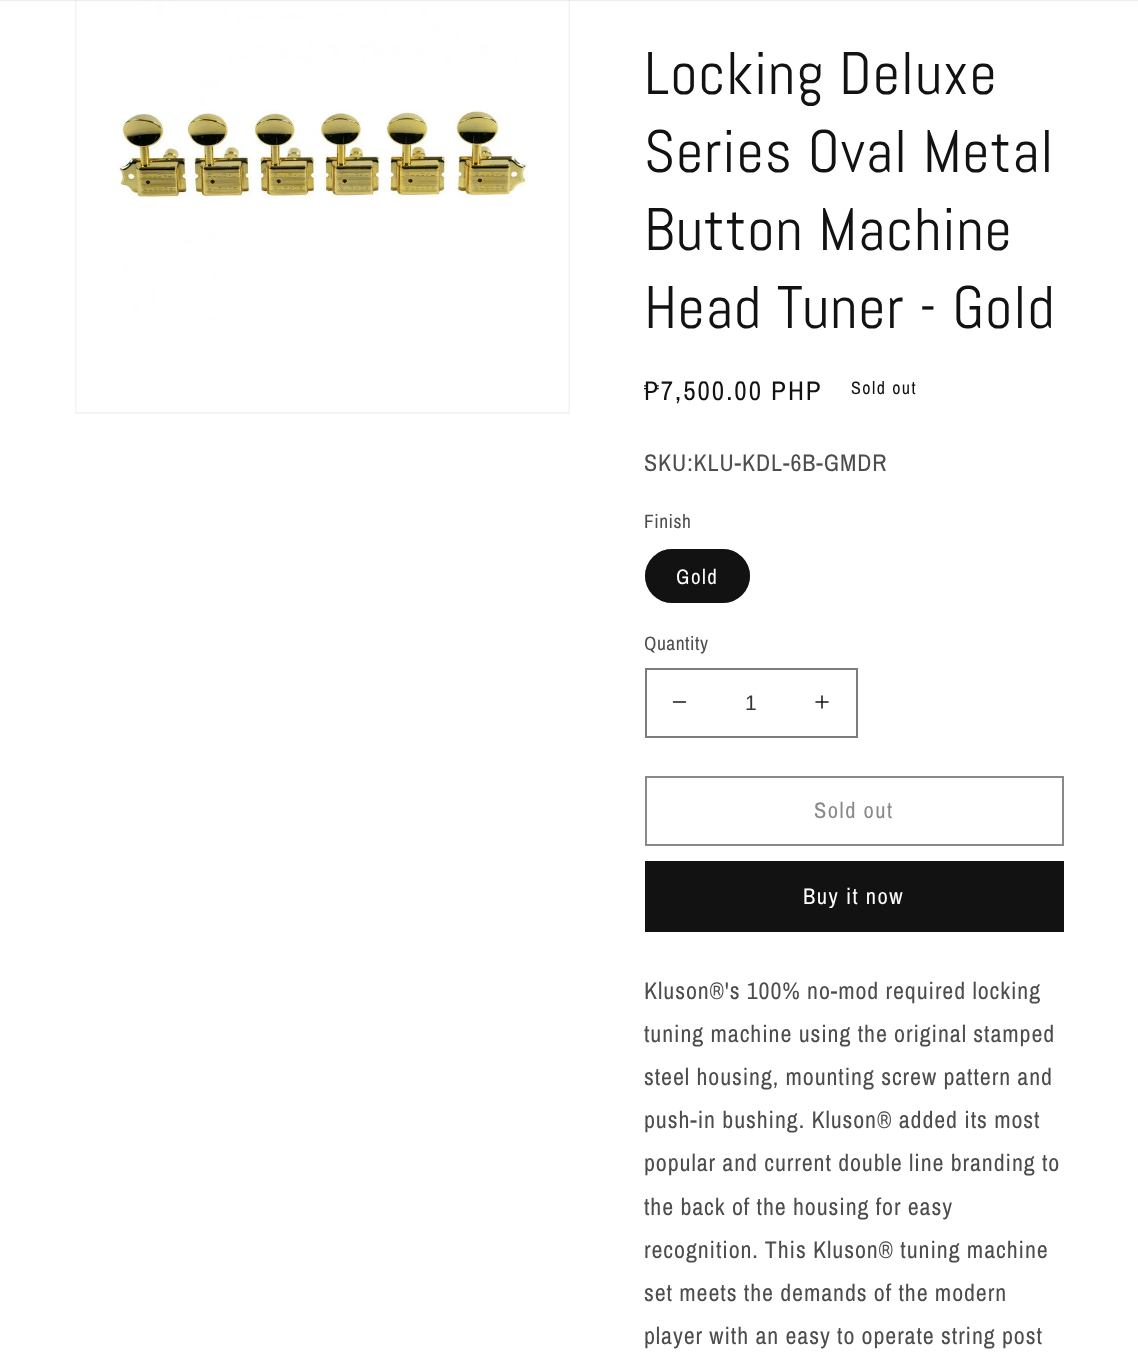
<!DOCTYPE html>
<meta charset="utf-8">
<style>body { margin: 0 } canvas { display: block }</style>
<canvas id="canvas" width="1138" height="1364"></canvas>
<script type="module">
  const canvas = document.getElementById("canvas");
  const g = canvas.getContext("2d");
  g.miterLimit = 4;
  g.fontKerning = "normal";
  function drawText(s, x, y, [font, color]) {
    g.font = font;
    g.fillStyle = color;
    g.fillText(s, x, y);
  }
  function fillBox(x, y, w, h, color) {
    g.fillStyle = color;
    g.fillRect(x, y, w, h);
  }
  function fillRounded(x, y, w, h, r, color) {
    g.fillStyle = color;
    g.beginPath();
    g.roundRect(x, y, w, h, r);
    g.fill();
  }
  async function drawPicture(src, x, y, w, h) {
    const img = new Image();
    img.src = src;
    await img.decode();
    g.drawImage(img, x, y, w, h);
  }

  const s1 = ["60px Abel", "#121212"];
  const s2 = ["27px Archivo Narrow", "#121212"];
  const s3 = ["18px Archivo Narrow", "#121212"];
  const s4 = ["24px Archivo Narrow", "#4D4D4D"];
  const s5 = ["19.5px Archivo Narrow", "#4D4D4D"];
  const s6 = ["21px Archivo Narrow", "#FFFFFF"];
  const s7 = ["21px Liberation Sans", "#363636"];
  const s8 = ["22.5px Archivo Narrow", "#898989"];
  const s9 = ["22.5px Archivo Narrow", "#FFFFFF"];

  fillBox(0, 0, 1138, 1364, "#FFFFFF");
  g.strokeStyle = "#F3F3F3";
  g.lineWidth = 2;
  g.strokeRect(76, -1, 493, 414);
  await drawPicture("pic1.png", 76, 0, 493, 412);
  fillBox(0, 0, 1138, 1, "rgba(18, 18, 18, 0.08)");
  g.letterSpacing = "0.9px";
  drawText("Locking Deluxe", 644, 94, s1);
  drawText("Series Oval Metal", 644, 172, s1);
  drawText("Button Machine", 644, 250, s1);
  drawText("Head Tuner - Gold", 644, 328, s1);
  g.letterSpacing = "2px";
  drawText("₱7,500.00 PHP", 644, 400, s2);
  g.letterSpacing = "1.5px";
  drawText("Sold out", 851, 394, s3);
  g.letterSpacing = "0.9px";
  drawText("SKU:KLU-KDL-6B-GMDR", 644, 471, s4);
  g.letterSpacing = "0.5px";
  drawText("Finish", 644, 528, s5);
  fillRounded(645, 549, 105, 54, 27, "#121212");
  g.beginPath();
  g.roundRect(646, 550, 103, 52, 26);
  g.strokeStyle = "rgba(18, 18, 18, 0.55)";
  g.stroke();
  g.letterSpacing = "1.5px";
  drawText("Gold", 676, 584, s6);
  g.letterSpacing = "0.5px";
  drawText("Quantity", 644, 650, s5);
  await drawPicture("pic2.png", 672, 701, 15, 2);
  await drawPicture("pic3.png", 815, 695, 14, 14);
  g.strokeStyle = "#7D7D7D";
  g.strokeRect(646, 669, 211, 68);
  g.letterSpacing = "0px";
  drawText("1", 745, 710, s7);
  g.strokeStyle = "#898989";
  g.strokeRect(646, 777, 417, 68);
  g.letterSpacing = "1.5px";
  drawText("Sold out", 814, 818, s8);
  fillBox(645, 861, 419, 71, "#121212");
  drawText("Buy it now", 803, 904, s9);
  g.letterSpacing = "0.9px";
  drawText("Kluson®'s 100% no-mod required locking", 644, 999, s4);
  drawText("tuning machine using the original stamped", 644, 1042, s4);
  drawText("steel housing, mounting screw pattern and", 644, 1085, s4);
  drawText("push-in bushing. Kluson® added its most", 644, 1128, s4);
  drawText("popular and current double line branding to", 644, 1171, s4);
  drawText("the back of the housing for easy", 644, 1215, s4);
  drawText("recognition. This Kluson® tuning machine", 644, 1258, s4);
  drawText("set meets the demands of the modern", 644, 1301, s4);
  drawText("player with an easy to operate string post", 644, 1344, s4);
</script>
